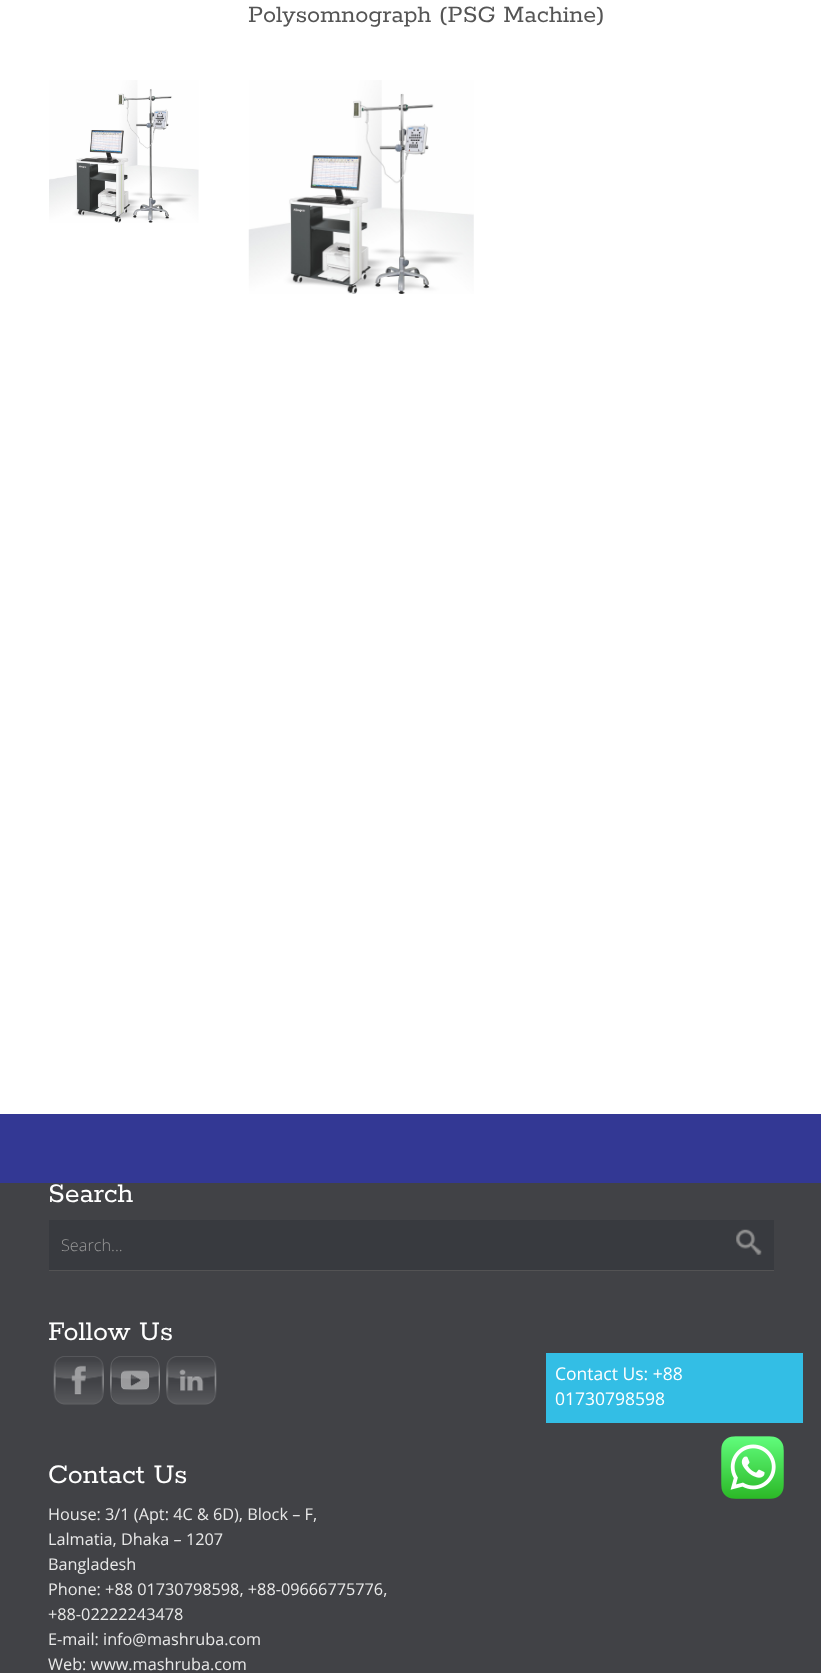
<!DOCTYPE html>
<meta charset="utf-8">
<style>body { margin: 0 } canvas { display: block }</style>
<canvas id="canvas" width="821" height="1673"></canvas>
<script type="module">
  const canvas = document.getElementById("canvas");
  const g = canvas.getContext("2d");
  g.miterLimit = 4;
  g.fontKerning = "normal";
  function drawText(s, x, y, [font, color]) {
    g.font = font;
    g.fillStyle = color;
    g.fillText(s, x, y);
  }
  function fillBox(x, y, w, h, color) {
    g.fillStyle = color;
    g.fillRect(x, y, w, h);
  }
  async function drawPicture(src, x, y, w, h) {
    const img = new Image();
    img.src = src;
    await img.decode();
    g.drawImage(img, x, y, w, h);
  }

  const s1 = ["26.25px Rokkitt", "#555555"];
  const s2 = ["30px Rokkitt", "#FFFFFF"];
  const s3 = ["300 16.25px Open Sans", "#999999"];
  const s4 = ["16.25px Open Sans", "#E9E9E9"];
  const s5 = ["17.5px Open Sans", "#FFFFFF"];

  fillBox(0, 0, 821, 1673, "#FFFFFF");
  drawText("Polysomnograph (PSG Machine)", 248, 22, s1);
  await drawPicture("pic1.png", 49, 80, 150, 143);
  await drawPicture("pic2.png", 248, 80, 226, 214);
  fillBox(0, 1114, 821, 69, "#333894");
  fillBox(0, 1183, 821, 490, "#414246");
  drawText("Search", 48, 1202, s2);
  g.fillStyle = "#535354";
  g.beginPath();
  g.moveTo(49, 1270);
  g.lineTo(49, 1271);
  g.lineTo(774, 1271);
  g.lineTo(774, 1221);
  g.lineTo(774, 1270);
  g.closePath();
  g.fill();
  fillBox(49, 1220, 725, 50, "#383A3F");
  drawText("Search...", 61, 1251, s3);
  await drawPicture("pic3.png", 736, 1229, 26, 26);
  drawText("Follow Us", 48, 1340, s2);
  await drawPicture("pic4.png", 53, 1356, 51, 49);
  await drawPicture("pic5.png", 110, 1356, 50, 49);
  await drawPicture("pic6.png", 166, 1356, 51, 49);
  drawText("Contact Us", 48, 1483, s2);
  drawText("House: 3/1 (Apt: 4C & 6D), Block – F,", 48, 1520, s4);
  drawText("Lalmatia, Dhaka – 1207", 48, 1545, s4);
  drawText("Bangladesh", 48, 1570, s4);
  drawText("Phone: +88 01730798598, +88-09666775776,", 48, 1595, s4);
  drawText("+88-02222243478", 48, 1620, s4);
  drawText("E-mail: info@mashruba.com", 48, 1645, s4);
  drawText("Web: www.mashruba.com", 48, 1670, s4);
  fillBox(546, 1353, 257, 70, "#33BEE5");
  drawText("Contact Us: +88", 555, 1380, s5);
  drawText("01730798598", 555, 1405, s5);
  await drawPicture("pic7.png", 721, 1436, 63, 63);
</script>
